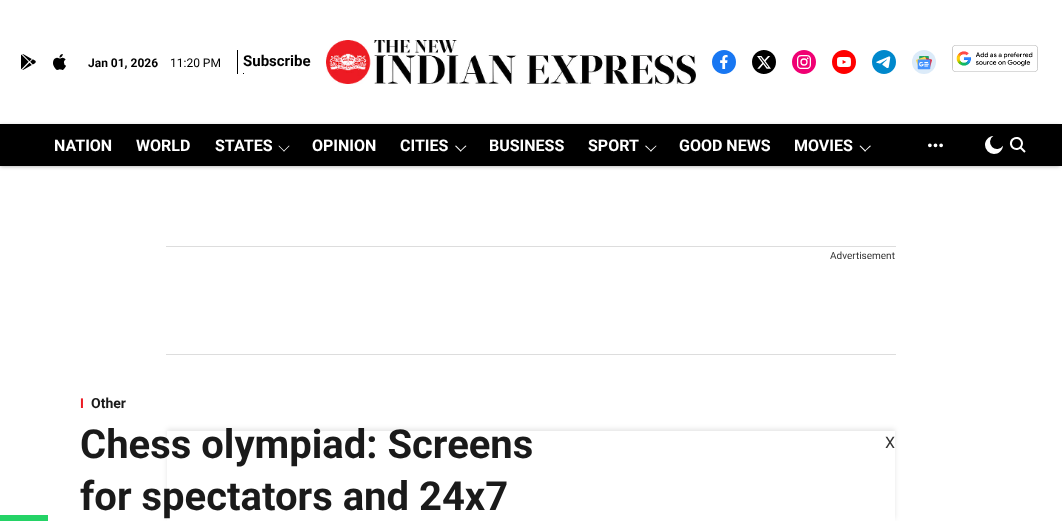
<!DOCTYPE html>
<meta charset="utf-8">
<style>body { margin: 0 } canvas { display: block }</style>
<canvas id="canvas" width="1062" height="521"></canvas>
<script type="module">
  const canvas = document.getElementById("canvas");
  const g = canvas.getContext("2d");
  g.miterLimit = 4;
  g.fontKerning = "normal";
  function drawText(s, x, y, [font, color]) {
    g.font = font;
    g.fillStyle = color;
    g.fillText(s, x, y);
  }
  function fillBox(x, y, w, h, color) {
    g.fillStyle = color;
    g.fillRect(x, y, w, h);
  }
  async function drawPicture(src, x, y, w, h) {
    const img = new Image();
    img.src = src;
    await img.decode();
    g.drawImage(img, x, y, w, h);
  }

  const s1 = ["bold 12px Roboto", "#000000"];
  const s2 = ["12px Roboto", "#000000"];
  const s3 = ["bold 15px Roboto", "#000000"];
  const s4 = ["bold 16px Roboto", "#FFFFFF"];
  const s5 = ["10px Roboto", "#333333"];
  const s6 = ["bold 14px Liberation Sans", "#EC1B24"];
  const s7 = ["bold 14px Roboto", "#1A1A1A"];
  const s8 = ["bold 40px Roboto", "#1A1A1A"];
  const s9 = ["16px Roboto", "#333333"];

  fillBox(0, 0, 1062, 521, "#FFFFFF");
  await drawPicture("pic1.png", 21, 54, 15, 16);
  await drawPicture("pic2.png", 53, 54, 13, 16);
  drawText("Jan 01, 2026", 88, 67, s1);
  drawText("11:20 PM", 170, 67, s2);
  fillBox(237, 50, 1, 24, "#000000");
  drawText("Subscribe", 243, 66, s3);
  fillBox(243, 73, 1, 1, "#000000");
  await drawPicture("pic3.png", 326, 40, 370, 44);
  await drawPicture("pic4.png", 712, 50, 24, 24);
  await drawPicture("pic5.png", 752, 50, 24, 24);
  await drawPicture("pic6.png", 792, 50, 24, 24);
  await drawPicture("pic7.png", 832, 50, 24, 24);
  await drawPicture("pic8.png", 872, 50, 24, 24);
  await drawPicture("pic9.png", 912, 50, 24, 24);
  await drawPicture("pic10.png", 952, 45, 86, 27);
  g.fillStyle = "rgba(0, 0, 0, 0.39)";
  g.filter = "blur(2px)";
  g.beginPath();
  g.rect(0, 126, 1060, 40);
  g.fill();
  g.filter = "none";
  fillBox(0, 124, 1062, 42, "#000000");
  drawText("NATION", 54, 151, s4);
  drawText("WORLD", 136, 151, s4);
  drawText("STATES", 215, 151, s4);
  g.beginPath();
  g.moveTo(289, 145.5);
  g.lineTo(289.5, 146);
  g.lineTo(284, 151.5);
  g.lineTo(283.5, 151);
  g.closePath();
  g.fill();
  g.beginPath();
  g.moveTo(279, 145.5);
  g.lineTo(284.5, 151);
  g.lineTo(284, 151.5);
  g.lineTo(278.5, 146);
  g.closePath();
  g.fill();
  drawText("OPINION", 312, 151, s4);
  drawText("CITIES", 400, 151, s4);
  g.beginPath();
  g.moveTo(465.5, 145.5);
  g.lineTo(466.5, 146);
  g.lineTo(460.5, 151.5);
  g.lineTo(460, 151);
  g.closePath();
  g.fill();
  g.beginPath();
  g.moveTo(456, 145.5);
  g.lineTo(461.5, 151);
  g.lineTo(460.5, 151.5);
  g.lineTo(455, 146);
  g.closePath();
  g.fill();
  drawText("BUSINESS", 489, 151, s4);
  drawText("SPORT", 588, 151, s4);
  g.beginPath();
  g.moveTo(656, 145.5);
  g.lineTo(656.5, 146);
  g.lineTo(651, 151.5);
  g.lineTo(650, 151);
  g.closePath();
  g.fill();
  g.beginPath();
  g.moveTo(646, 145.5);
  g.lineTo(651.5, 151);
  g.lineTo(651, 151.5);
  g.lineTo(645, 146);
  g.closePath();
  g.fill();
  drawText("GOOD NEWS", 679, 151, s4);
  drawText("MOVIES", 794, 151, s4);
  g.beginPath();
  g.moveTo(870, 145.5);
  g.lineTo(871, 146);
  g.lineTo(865, 151.5);
  g.lineTo(864.5, 151);
  g.closePath();
  g.fill();
  g.beginPath();
  g.moveTo(860.5, 145.5);
  g.lineTo(866, 151);
  g.lineTo(865, 151.5);
  g.lineTo(859.5, 146);
  g.closePath();
  g.fill();
  await drawPicture("pic11.png", 928, 143, 15, 5);
  await drawPicture("pic12.png", 985, 136, 18, 18);
  await drawPicture("pic13.png", 1009, 137, 17, 16);
  fillBox(166, 246, 730, 1, "#DDDDDD");
  fillBox(166, 354, 730, 1, "#DDDDDD");
  drawText("Advertisement", 830, 259, s5);
  fillBox(0, 515, 48, 6, "#24D366");
  drawText("I", 80, 408, s6);
  drawText("Other", 91, 408, s7);
  drawText("Chess olympiad: Screens", 80, 458, s8);
  drawText("for spectators and 24x7", 80, 510, s8);
  g.save();
  g.beginPath();
  g.moveTo(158, 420);
  g.lineTo(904, 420);
  g.lineTo(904, 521);
  g.lineTo(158, 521);
  g.closePath();
  g.moveTo(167, 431);
  g.lineTo(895, 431);
  g.lineTo(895, 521);
  g.lineTo(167, 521);
  g.closePath();
  g.clip("evenodd");
  g.fillStyle = "rgba(0, 0, 0, 0.1)";
  g.filter = "blur(2.5px)";
  g.beginPath();
  g.rect(167, 429, 728, 90);
  g.fill();
  g.filter = "none";
  g.restore();
  drawText("X", 885, 448, s9);
</script>
